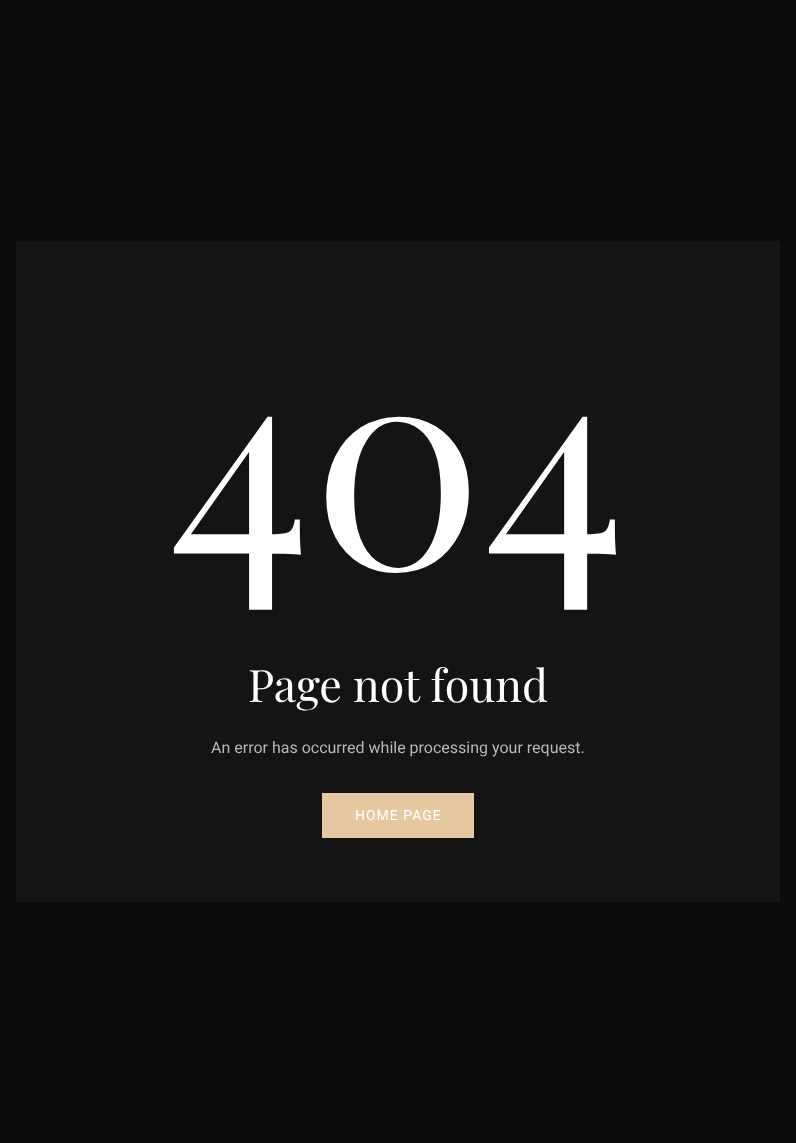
<!DOCTYPE html>
<meta charset="utf-8">
<style>body { margin: 0 } canvas { display: block }</style>
<canvas id="canvas" width="796" height="1143"></canvas>
<script type="module">
  const canvas = document.getElementById("canvas");
  const g = canvas.getContext("2d");
  g.miterLimit = 4;
  g.fontKerning = "normal";
  function drawText(s, x, y, [font, color]) {
    g.font = font;
    g.fillStyle = color;
    g.fillText(s, x, y);
  }
  function fillBox(x, y, w, h, color) {
    g.fillStyle = color;
    g.fillRect(x, y, w, h);
  }

  const s1 = ["288px Playfair Display", "#FFFFFF"];
  const s2 = ["44.75px Playfair Display", "#FFFFFF"];
  const s3 = ["16px Roboto", "#B8B8B8"];
  const s4 = ["14px Roboto", "#FFFFFF"];

  fillBox(0, 0, 796, 1143, "#0A0B0A");
  fillBox(16, 241, 764, 661, "#131413");
  drawText("404", 169, 569, s1);
  drawText("Page not found", 248, 702, s2);
  drawText("An error has occurred while processing your request.", 211, 753, s3);
  fillBox(322, 793, 152, 45, "#E6C9A2");
  g.letterSpacing = "1px";
  drawText("HOME PAGE", 355, 820, s4);
</script>
